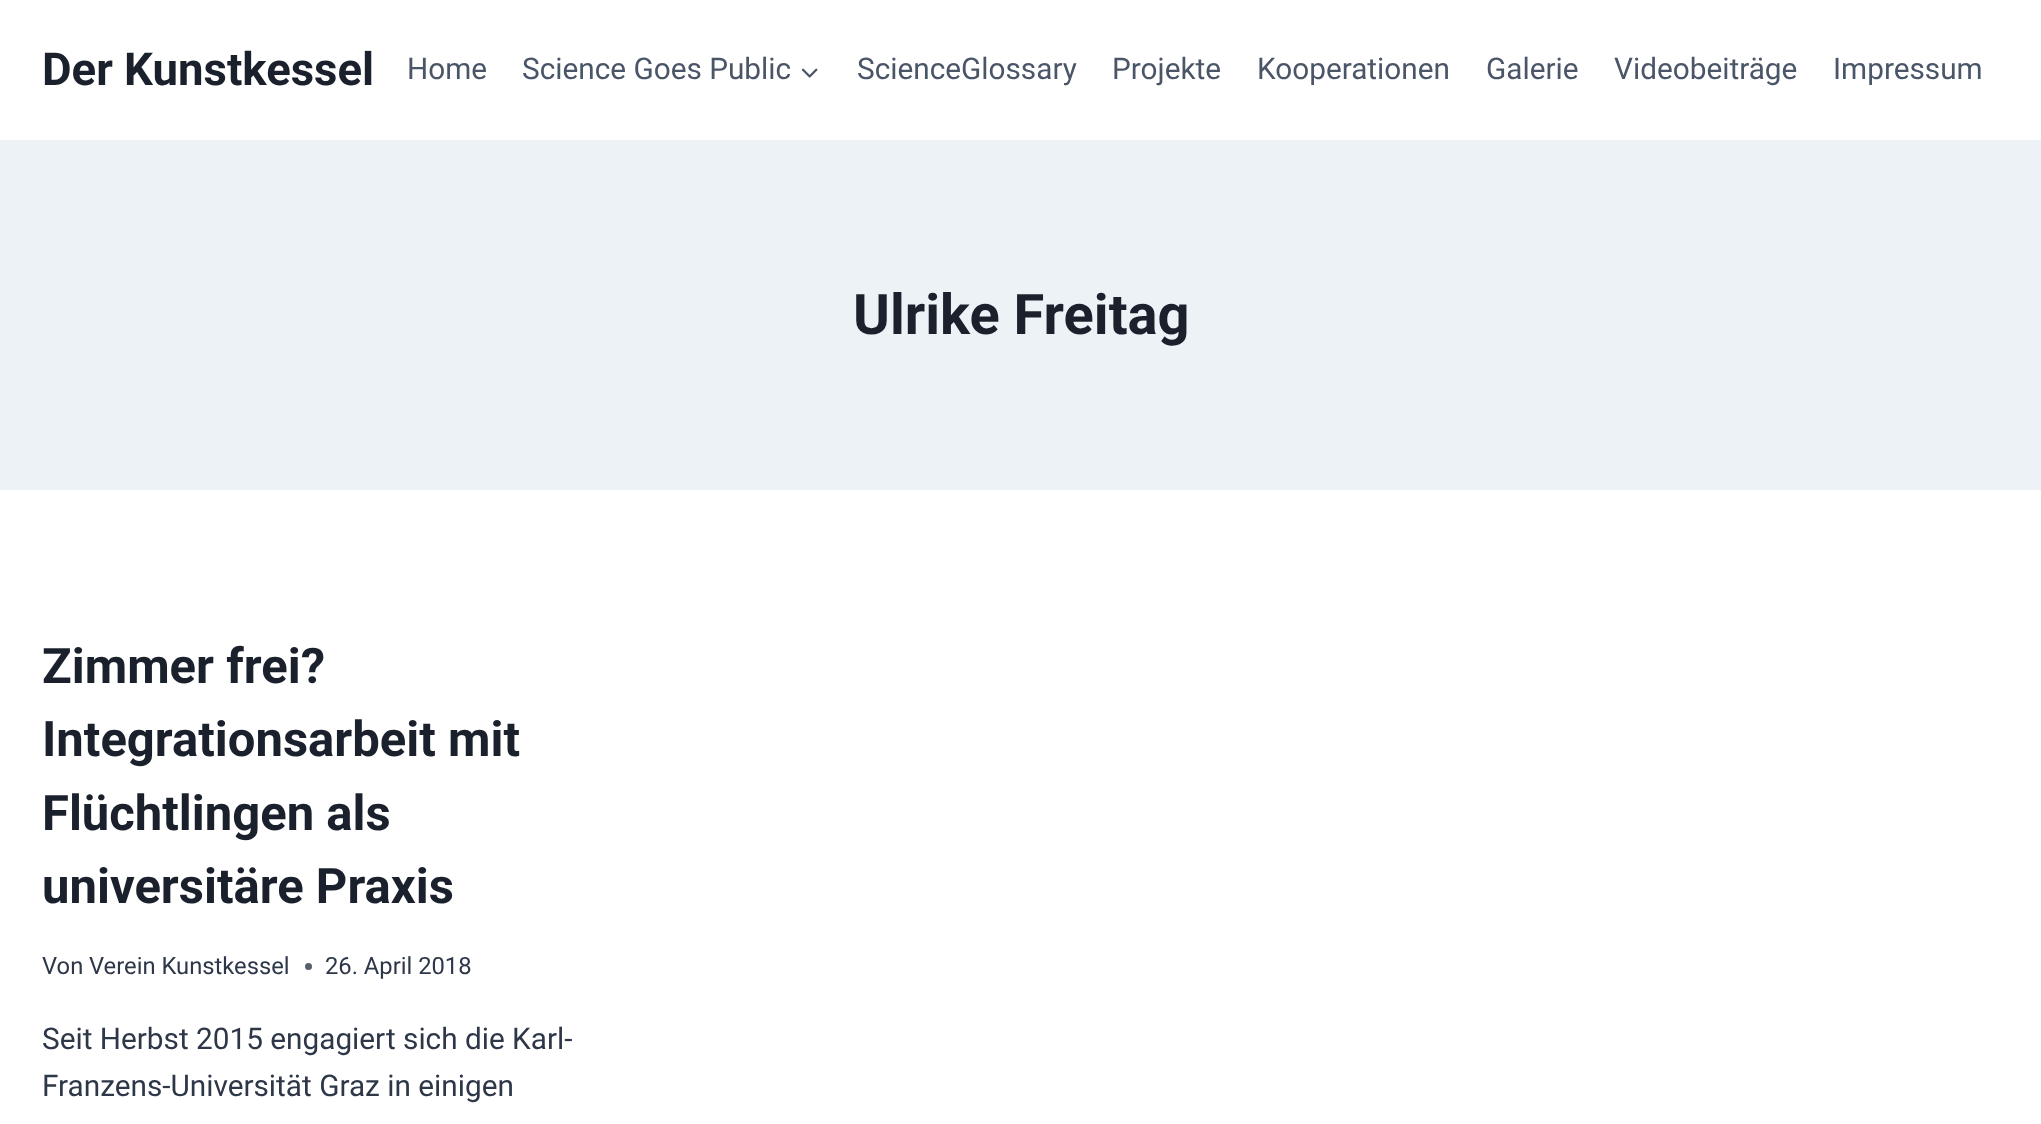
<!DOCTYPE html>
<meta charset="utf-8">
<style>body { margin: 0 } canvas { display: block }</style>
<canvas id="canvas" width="2041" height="1124"></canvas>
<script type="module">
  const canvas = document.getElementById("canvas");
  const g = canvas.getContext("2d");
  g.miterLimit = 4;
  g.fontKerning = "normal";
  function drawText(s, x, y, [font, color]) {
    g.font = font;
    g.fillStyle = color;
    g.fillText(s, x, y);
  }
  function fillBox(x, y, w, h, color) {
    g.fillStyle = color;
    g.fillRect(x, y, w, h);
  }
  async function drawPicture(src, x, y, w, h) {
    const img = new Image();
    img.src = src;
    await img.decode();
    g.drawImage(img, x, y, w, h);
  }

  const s1 = ["bold 45.5px Roboto", "#1A202C"];
  const s2 = ["29.75px Roboto", "#4A5568"];
  const s3 = ["bold 56px Roboto", "#1A202C"];
  const s4 = ["bold 49px Roboto", "#1A202C"];
  const s5 = ["23.75px Roboto", "#2D3748"];
  const s6 = ["29.75px Roboto", "#2D3748"];

  fillBox(0, 0, 2041, 1124, "#FFFFFF");
  drawText("Der Kunstkessel", 42, 85, s1);
  drawText("Home", 407, 79, s2);
  drawText("Science Goes Public", 522, 79, s2);
  await drawPicture("pic1.png", 801, 68, 17, 10);
  drawText("ScienceGlossary", 857, 79, s2);
  drawText("Projekte", 1112, 79, s2);
  drawText("Kooperationen", 1257, 79, s2);
  drawText("Galerie", 1486, 79, s2);
  drawText("Videobeiträge", 1614, 79, s2);
  drawText("Impressum", 1833, 79, s2);
  fillBox(0, 140, 2041, 350, "#EDF2F7");
  drawText("Ulrike Freitag", 853, 334, s3);
  drawText("Zimmer frei?", 42, 683, s4);
  drawText("Integrationsarbeit mit", 42, 756, s4);
  drawText("Flüchtlingen als", 42, 830, s4);
  drawText("universitäre Praxis", 42, 903, s4);
  drawText("Von", 42, 974, s5);
  drawText("Verein Kunstkessel", 89, 974, s5);
  g.fillStyle = "#575F6D";
  g.beginPath();
  g.arc(308.5, 966.5, 3.5, 0, Math.PI * 2);
  g.fill();
  drawText("26. April 2018", 325, 974, s5);
  drawText("Seit Herbst 2015 engagiert sich die Karl-", 42, 1049, s6);
  drawText("Franzens-Universität Graz in einigen", 42, 1096, s6);
</script>
